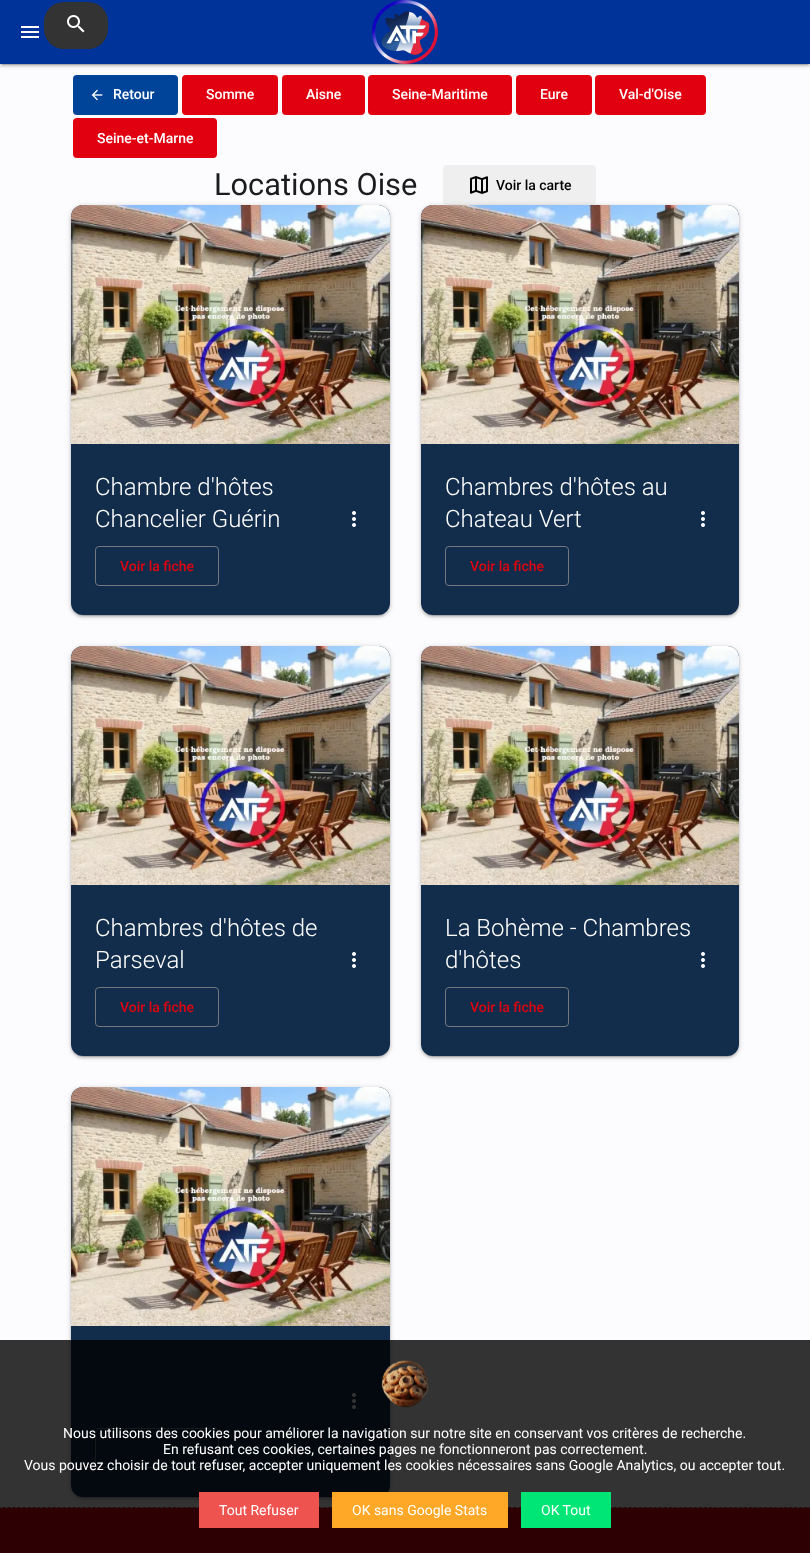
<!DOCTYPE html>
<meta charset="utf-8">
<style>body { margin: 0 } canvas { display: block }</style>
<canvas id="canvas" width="810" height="1553"></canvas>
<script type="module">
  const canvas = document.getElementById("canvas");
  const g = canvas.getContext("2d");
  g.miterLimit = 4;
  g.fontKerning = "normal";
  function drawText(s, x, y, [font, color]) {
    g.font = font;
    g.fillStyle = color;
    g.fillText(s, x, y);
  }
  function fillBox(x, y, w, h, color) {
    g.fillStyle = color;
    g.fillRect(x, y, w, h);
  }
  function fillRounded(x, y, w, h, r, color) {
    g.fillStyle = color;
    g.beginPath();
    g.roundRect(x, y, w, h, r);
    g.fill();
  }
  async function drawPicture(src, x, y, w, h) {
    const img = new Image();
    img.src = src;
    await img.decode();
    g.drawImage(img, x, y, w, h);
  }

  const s1 = ["500 14px Roboto", "#FFFFFF"];
  const s2 = ["30.75px Roboto", "#1A1C1E"];
  const s3 = ["500 14px Roboto", "#000000"];
  const s4 = ["300 24px Roboto", "#FFFFFF"];
  const s5 = ["500 14px Roboto", "#E1000F"];
  const s6 = ["14px Roboto", "#FFFFFF"];

  fillBox(0, 0, 810, 1553, "#FCFCFF");
  g.fillStyle = "rgba(0, 0, 0, 0.2)";
  g.filter = "blur(2.5px)";
  g.beginPath();
  g.rect(0, 1, 810, 64);
  g.fill();
  g.filter = "none";
  g.fillStyle = "rgba(0, 0, 0, 0.12)";
  g.filter = "blur(0.5px)";
  g.beginPath();
  g.rect(2, 5, 806, 60);
  g.fill();
  g.filter = "none";
  g.fillStyle = "rgba(0, 0, 0, 0.14)";
  g.filter = "blur(1px)";
  g.beginPath();
  g.rect(0, 2, 810, 64);
  g.fill();
  g.filter = "none";
  fillBox(0, 0, 810, 64, "#003399");
  await drawPicture("pic1.png", 21, 26, 18, 12);
  fillRounded(44, 2, 64, 47, 20, "#333333");
  await drawPicture("pic2.png", 67, 15, 18, 18);
  await drawPicture("pic3.png", 372, 0, 66, 64);
  fillRounded(73, 75, 105, 40, 4, "#004499");
  await drawPicture("pic4.png", 91, 89, 12, 12);
  drawText("Retour", 113, 99, s1);
  fillRounded(182, 75, 96, 40, 4, "#E1000F");
  drawText("Somme", 206, 99, s1);
  fillRounded(282, 75, 83, 40, 4, "#E1000F");
  drawText("Aisne", 306, 99, s1);
  fillRounded(368, 75, 144, 40, 4, "#E1000F");
  drawText("Seine-Maritime", 392, 99, s1);
  fillRounded(516, 75, 76, 40, 4, "#E1000F");
  drawText("Eure", 540, 99, s1);
  fillRounded(595, 75, 111, 40, 4, "#E1000F");
  drawText("Val-d'Oise", 619, 99, s1);
  fillRounded(73, 118, 144, 40, 4, "#E1000F");
  drawText("Seine-et-Marne", 97, 143, s1);
  drawText("Locations Oise", 214, 195, s2);
  fillRounded(443, 165, 153, 40, 4, "#EFEFEF");
  await drawPicture("pic5.png", 470, 176, 18, 18);
  drawText("Voir la carte", 496, 190, s3);
  g.fillStyle = "rgba(0, 0, 0, 0.2)";
  g.filter = "blur(2.5px)";
  g.beginPath();
  g.roundRect(71, 206, 319, 410, 12);
  g.fill();
  g.filter = "none";
  g.fillStyle = "rgba(0, 0, 0, 0.12)";
  g.filter = "blur(0.5px)";
  g.beginPath();
  g.roundRect(73, 210, 315, 406, 10);
  g.fill();
  g.filter = "none";
  g.fillStyle = "rgba(0, 0, 0, 0.14)";
  g.filter = "blur(1px)";
  g.beginPath();
  g.roundRect(71, 207, 319, 410, 12);
  g.fill();
  g.filter = "none";
  fillRounded(71, 205, 319, 410, 12, "#122D4B");
  await drawPicture("pic6.png", 71, 205, 319, 239);
  drawText("Chambre d'hôtes", 95, 495, s4);
  drawText("Chancelier Guérin", 95, 527, s4);
  await drawPicture("pic7.png", 352, 511, 4, 16);
  g.beginPath();
  g.roundRect(95.5, 546.5, 123, 39, 3.5);
  g.strokeStyle = "#72787E";
  g.stroke();
  drawText("Voir la fiche", 120, 571, s5);
  g.fillStyle = "rgba(0, 0, 0, 0.2)";
  g.filter = "blur(2.5px)";
  g.beginPath();
  g.roundRect(421, 206, 318, 410, 12);
  g.fill();
  g.filter = "none";
  g.fillStyle = "rgba(0, 0, 0, 0.12)";
  g.filter = "blur(0.5px)";
  g.beginPath();
  g.roundRect(423, 210, 314, 406, 10);
  g.fill();
  g.filter = "none";
  g.fillStyle = "rgba(0, 0, 0, 0.14)";
  g.filter = "blur(1px)";
  g.beginPath();
  g.roundRect(421, 207, 318, 410, 12);
  g.fill();
  g.filter = "none";
  fillRounded(421, 205, 318, 410, 12, "#122D4B");
  await drawPicture("pic8.png", 421, 205, 318, 239);
  drawText("Chambres d'hôtes au", 445, 495, s4);
  drawText("Chateau Vert", 445, 527, s4);
  await drawPicture("pic7.png", 701, 511, 4, 16);
  g.beginPath();
  g.roundRect(445.5, 546.5, 123, 39, 3.5);
  g.stroke();
  drawText("Voir la fiche", 470, 571, s5);
  g.fillStyle = "rgba(0, 0, 0, 0.2)";
  g.filter = "blur(2.5px)";
  g.beginPath();
  g.roundRect(71, 647, 319, 410, 12);
  g.fill();
  g.filter = "none";
  g.fillStyle = "rgba(0, 0, 0, 0.12)";
  g.filter = "blur(0.5px)";
  g.beginPath();
  g.roundRect(73, 651, 315, 406, 10);
  g.fill();
  g.filter = "none";
  g.fillStyle = "rgba(0, 0, 0, 0.14)";
  g.filter = "blur(1px)";
  g.beginPath();
  g.roundRect(71, 648, 319, 410, 12);
  g.fill();
  g.filter = "none";
  fillRounded(71, 646, 319, 410, 12, "#122D4B");
  await drawPicture("pic6.png", 71, 646, 319, 239);
  drawText("Chambres d'hôtes de", 95, 936, s4);
  drawText("Parseval", 95, 968, s4);
  await drawPicture("pic7.png", 352, 952, 4, 16);
  g.beginPath();
  g.roundRect(95.5, 987.5, 123, 39, 3.5);
  g.stroke();
  drawText("Voir la fiche", 120, 1012, s5);
  g.fillStyle = "rgba(0, 0, 0, 0.2)";
  g.filter = "blur(2.5px)";
  g.beginPath();
  g.roundRect(421, 647, 318, 410, 12);
  g.fill();
  g.filter = "none";
  g.fillStyle = "rgba(0, 0, 0, 0.12)";
  g.filter = "blur(0.5px)";
  g.beginPath();
  g.roundRect(423, 651, 314, 406, 10);
  g.fill();
  g.filter = "none";
  g.fillStyle = "rgba(0, 0, 0, 0.14)";
  g.filter = "blur(1px)";
  g.beginPath();
  g.roundRect(421, 648, 318, 410, 12);
  g.fill();
  g.filter = "none";
  fillRounded(421, 646, 318, 410, 12, "#122D4B");
  await drawPicture("pic8.png", 421, 646, 318, 239);
  drawText("La Bohème - Chambres", 445, 936, s4);
  drawText("d'hôtes", 445, 968, s4);
  await drawPicture("pic7.png", 701, 952, 4, 16);
  g.beginPath();
  g.roundRect(445.5, 987.5, 123, 39, 3.5);
  g.stroke();
  drawText("Voir la fiche", 470, 1012, s5);
  g.fillStyle = "rgba(0, 0, 0, 0.2)";
  g.filter = "blur(2.5px)";
  g.beginPath();
  g.roundRect(71, 1088, 319, 410, 12);
  g.fill();
  g.filter = "none";
  g.fillStyle = "rgba(0, 0, 0, 0.12)";
  g.filter = "blur(0.5px)";
  g.beginPath();
  g.roundRect(73, 1092, 315, 406, 10);
  g.fill();
  g.filter = "none";
  g.fillStyle = "rgba(0, 0, 0, 0.14)";
  g.filter = "blur(1px)";
  g.beginPath();
  g.roundRect(71, 1089, 319, 410, 12);
  g.fill();
  g.filter = "none";
  fillRounded(71, 1087, 319, 410, 12, "#122D4B");
  await drawPicture("pic9.png", 71, 1087, 319, 239);
  await drawPicture("pic7.png", 352, 1393, 4, 16);
  g.beginPath();
  g.roundRect(95.5, 1428.5, 123, 39, 3.5);
  g.stroke();
  fillBox(0, 1507, 810, 46, "#E1000F");
  g.beginPath();
  g.moveTo(0, 1507.5);
  g.lineTo(810, 1507.5);
  g.strokeStyle = "#C1C7CE";
  g.setLineDash([3, 2.01]);
  g.stroke();
  fillBox(0, 1340, 810, 213, "rgba(0, 0, 0, 0.8)");
  await drawPicture("pic10.png", 381, 1360, 48, 48);
  drawText("Nous utilisons des cookies pour améliorer la navigation sur notre site en conservant vos critères de recherche.", 63, 1438, s6);
  drawText("En refusant ces cookies, certaines pages ne fonctionneront pas correctement.", 163, 1454, s6);
  drawText("Vous pouvez choisir de tout refuser, accepter uniquement les cookies nécessaires sans Google Analytics, ou accepter tout.", 24, 1470, s6);
  fillBox(199, 1492, 120, 36, "#EF5350");
  drawText("Tout Refuser", 219, 1515, s6);
  fillBox(332, 1492, 176, 36, "#FFA726");
  drawText("OK sans Google Stats", 352, 1515, s6);
  fillBox(521, 1492, 90, 36, "#00E676");
  drawText("OK Tout", 541, 1515, s6);
</script>
